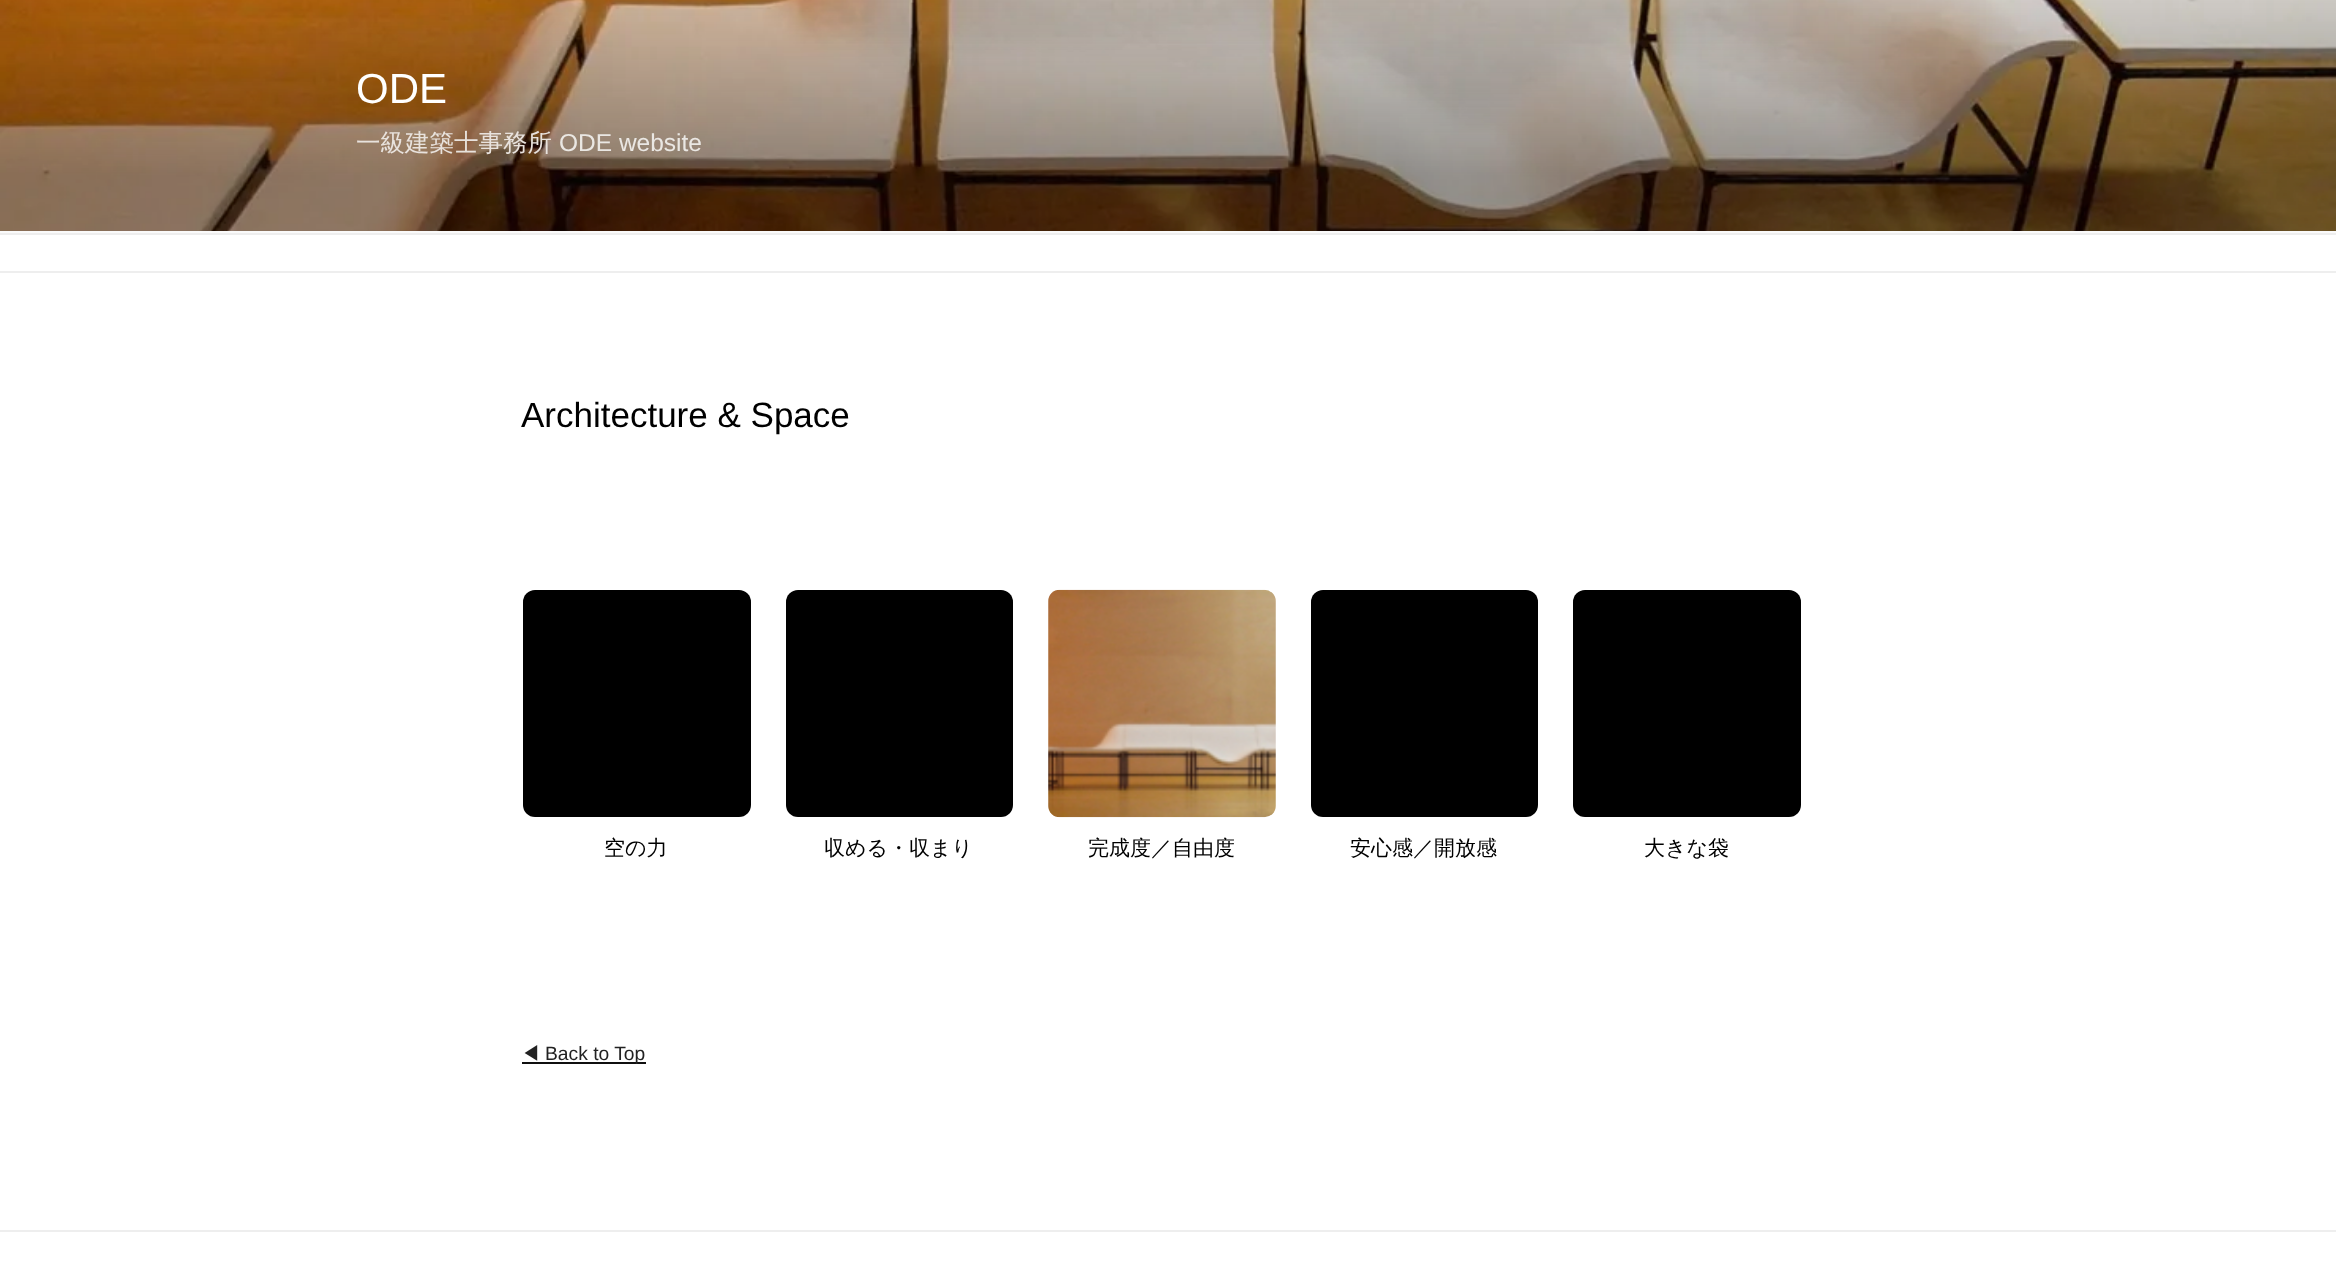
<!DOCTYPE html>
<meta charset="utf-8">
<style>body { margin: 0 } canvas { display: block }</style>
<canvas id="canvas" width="2336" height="1280"></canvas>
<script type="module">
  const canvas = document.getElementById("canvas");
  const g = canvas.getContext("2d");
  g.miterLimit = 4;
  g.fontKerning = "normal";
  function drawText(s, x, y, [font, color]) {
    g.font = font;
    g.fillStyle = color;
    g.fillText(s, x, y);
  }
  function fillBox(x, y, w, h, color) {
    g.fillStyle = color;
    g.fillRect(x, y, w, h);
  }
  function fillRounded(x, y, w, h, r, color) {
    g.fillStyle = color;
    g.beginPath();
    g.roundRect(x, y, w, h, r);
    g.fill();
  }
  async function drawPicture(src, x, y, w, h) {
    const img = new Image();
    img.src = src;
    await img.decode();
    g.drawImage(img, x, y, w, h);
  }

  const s1 = ["42px Liberation Sans", "#FFFFFF"];
  const s2 = ["500 24.5px WenQuanYi Zen Hei", "#E8E2DD"];
  const s3 = ["24.5px Liberation Sans", "#EAE7E3"];
  const s4 = ["35px Liberation Sans", "#000000"];
  const s5 = ["500 21px WenQuanYi Zen Hei", "#000000"];
  const s6 = ["500 19.25px WenQuanYi Zen Hei", "#222222"];
  const s7 = ["19.25px Liberation Sans", "#222222"];

  fillBox(0, 0, 2336, 1280, "#FFFFFF");
  fillBox(0, 231, 2336, 2, "#FAFAFA");
  await drawPicture("pic1.png", 0, 0, 2336, 231);
  drawText("ODE", 356, 103, s1);
  drawText("一級建築士事務所", 356, 151, s2);
  drawText("ODE website", 559, 151, s3);
  fillBox(0, 233, 2336, 2, "#EEEEEE");
  fillBox(0, 271, 2336, 2, "#EEEEEE");
  drawText("Architecture & Space", 521, 427, s4);
  fillRounded(523, 590, 228, 227, 12, "#000000");
  drawText("空の力", 604, 855, s5);
  fillRounded(786, 590, 227, 227, 12, "#000000");
  drawText("収める・収まり", 824, 855, s5);
  await drawPicture("pic2.png", 1048, 589, 228, 229);
  drawText("完成度／自由度", 1088, 855, s5);
  fillRounded(1311, 590, 227, 227, 12, "#000000");
  drawText("安心感／開放感", 1350, 855, s5);
  fillRounded(1573, 590, 228, 227, 12, "#000000");
  drawText("大きな袋", 1644, 855, s5);
  drawText("◀︎", 521, 1060, s6);
  fillBox(522, 1062, 124, 2, "#0F0F0F");
  drawText("Back to Top", 545, 1060, s7);
  fillBox(0, 1230, 2336, 2, "#EEEEEE");
</script>
